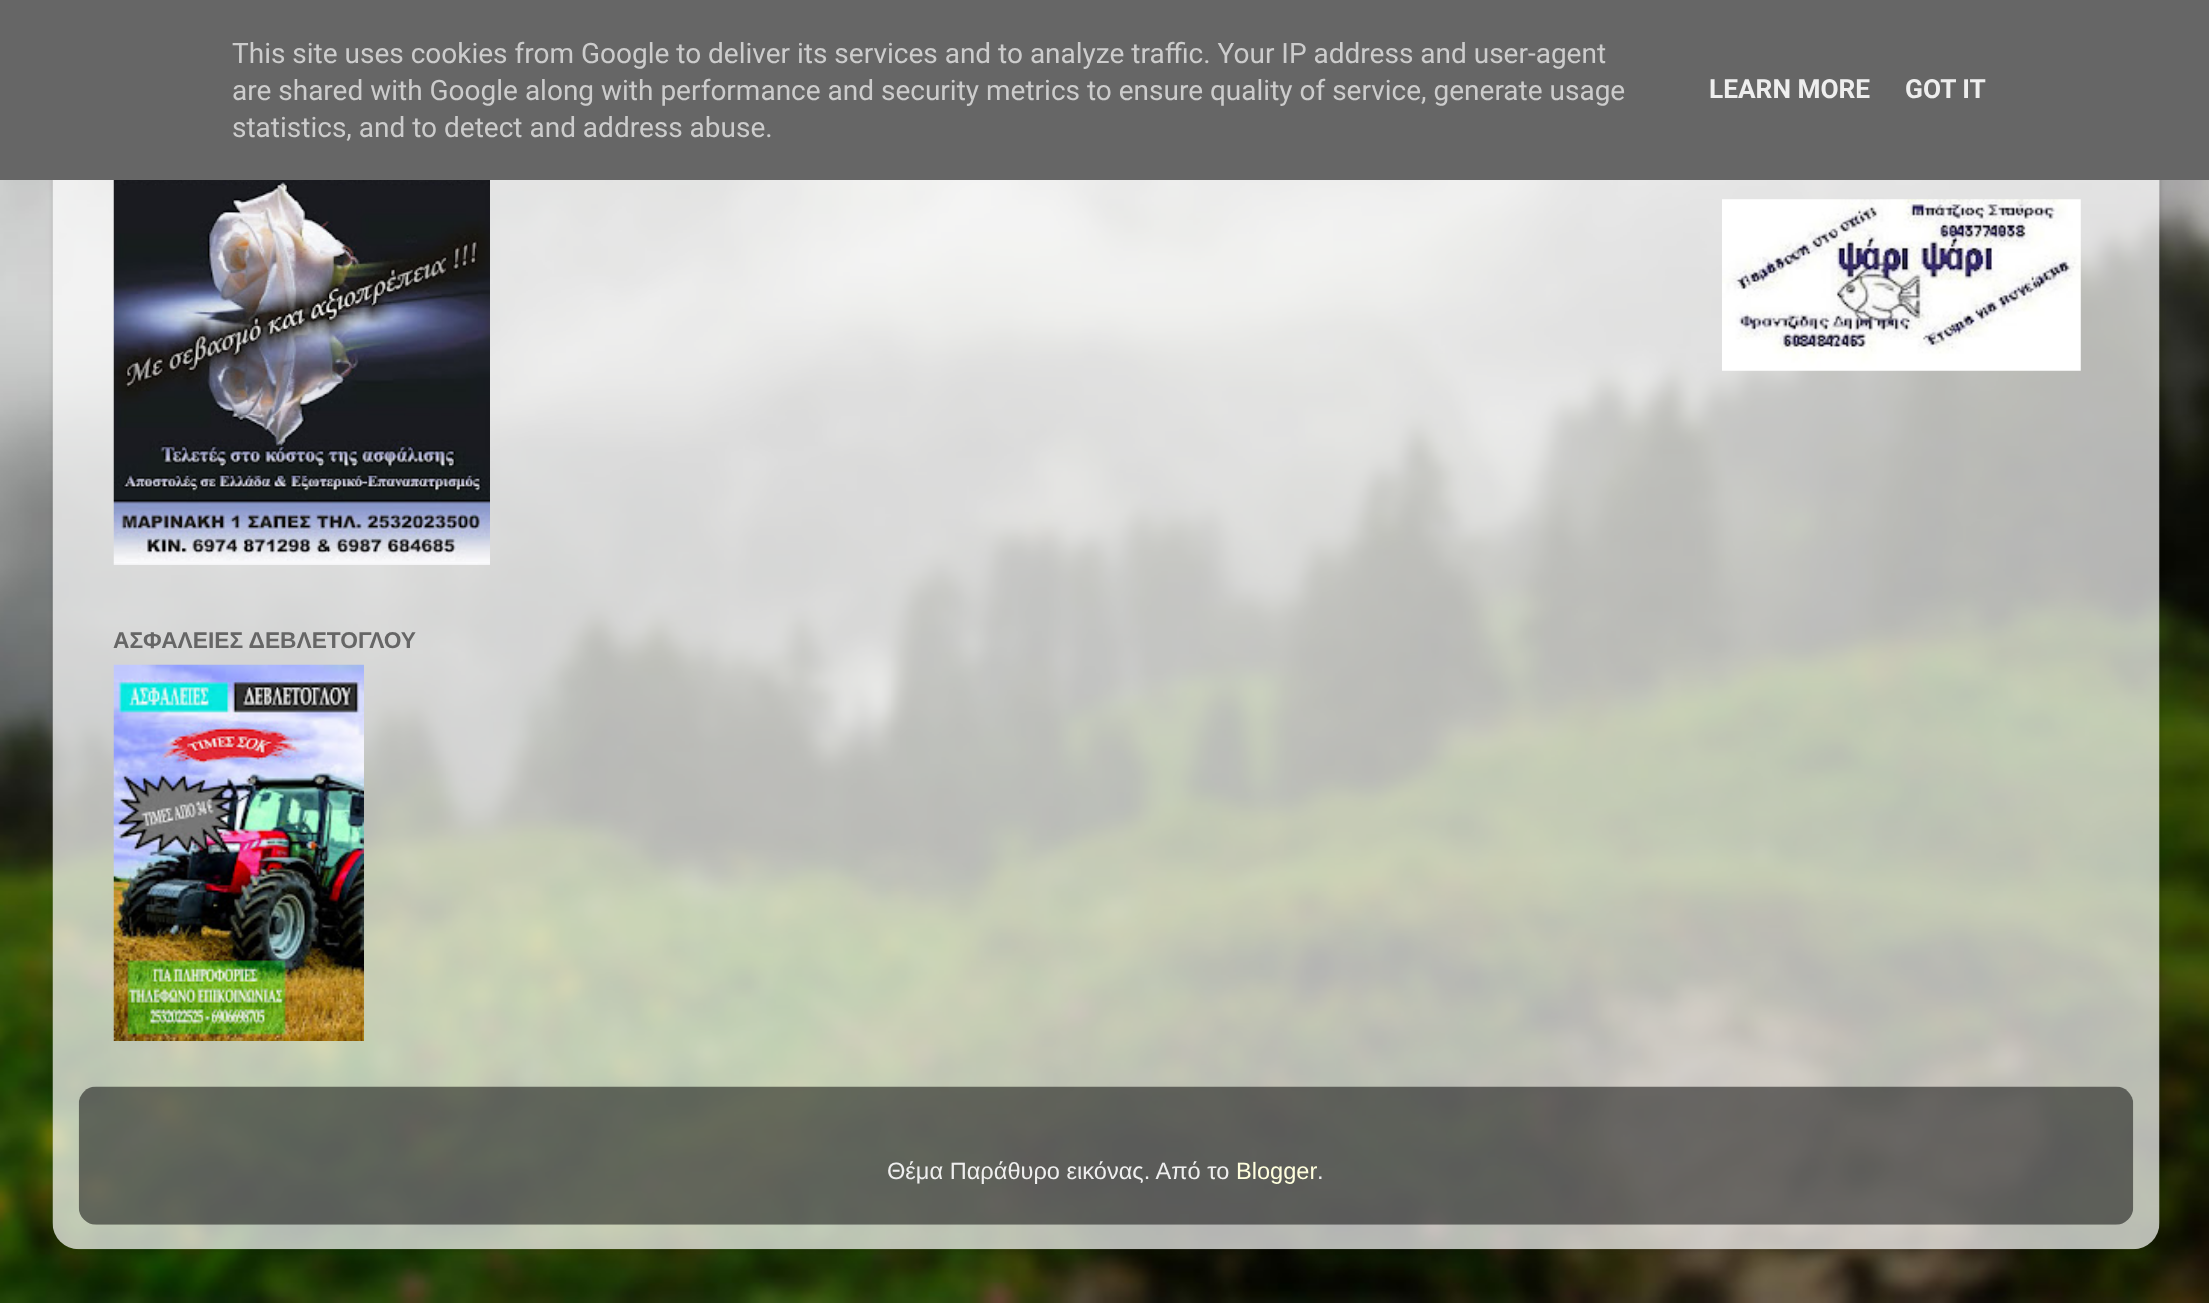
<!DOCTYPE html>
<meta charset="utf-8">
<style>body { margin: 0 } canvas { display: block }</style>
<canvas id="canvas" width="2209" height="1303"></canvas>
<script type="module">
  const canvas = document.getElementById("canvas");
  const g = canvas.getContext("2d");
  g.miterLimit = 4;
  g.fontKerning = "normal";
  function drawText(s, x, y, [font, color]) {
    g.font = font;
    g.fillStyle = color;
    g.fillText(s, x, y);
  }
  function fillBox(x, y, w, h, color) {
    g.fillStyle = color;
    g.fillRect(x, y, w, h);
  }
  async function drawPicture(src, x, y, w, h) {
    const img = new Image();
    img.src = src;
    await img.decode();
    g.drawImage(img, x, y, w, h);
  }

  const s1 = ["28px Roboto", "#CCCCCC"];
  const s2 = ["bold 26.25px Roboto", "#EEEEEE"];
  const s3 = ["bold 22.75px Liberation Sans", "#666666"];
  const s4 = ["23.6px Liberation Sans", "#EEEEEE"];
  const s5 = ["23.6px Liberation Sans", "#FFFFDD"];

  fillBox(0, 0, 2209, 1303, "#FFFFFF");
  await drawPicture("pic1.png", 0, 180, 2209, 1123);
  g.save();
  g.beginPath();
  g.moveTo(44, 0);
  g.lineTo(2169, 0);
  g.lineTo(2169, 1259);
  g.lineTo(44, 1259);
  g.closePath();
  g.moveTo(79, -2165);
  g.lineTo(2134, -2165);
  g.bezierCurveTo(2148.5, -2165, 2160, -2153.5, 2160, -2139);
  g.lineTo(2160, 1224);
  g.bezierCurveTo(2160, 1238.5, 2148.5, 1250, 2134, 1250);
  g.lineTo(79, 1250);
  g.bezierCurveTo(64.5, 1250, 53, 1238.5, 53, 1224);
  g.lineTo(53, -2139);
  g.bezierCurveTo(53, -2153.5, 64.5, -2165, 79, -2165);
  g.closePath();
  g.clip("evenodd");
  g.fillStyle = "rgba(0, 0, 0, 0.15)";
  g.filter = "blur(2.5px)";
  g.beginPath();
  g.roundRect(53, -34, 2107, 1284, 26);
  g.fill();
  g.filter = "none";
  g.restore();
  fillBox(0, 0, 2209, 180, "#666666");
  drawText("This site uses cookies from Google to deliver its services and to analyze traffic. Your IP address and user-agent", 232, 63, s1);
  drawText("are shared with Google along with performance and security metrics to ensure quality of service, generate usage", 232, 100, s1);
  drawText("statistics, and to detect and address abuse.", 232, 137, s1);
  drawText("LEARN MORE", 1709, 98, s2);
  drawText("GOT IT", 1905, 98, s2);
  await drawPicture("pic2.png", 52, 180, 2108, 1070);
  await drawPicture("pic3.png", 1722, 199, 359, 172);
  await drawPicture("pic4.png", 113, 180, 377, 385);
  drawText("ΑΣΦΑΛΕΙΕΣ ΔΕΒΛΕΤΟΓΛΟΥ", 113, 648, s3);
  await drawPicture("pic5.png", 113, 664, 251, 377);
  await drawPicture("pic6.png", 78, 1086, 2056, 139);
  drawText("Θέμα Παράθυρο εικόνας. Από το", 887, 1179, s4);
  drawText("Blogger", 1236, 1179, s5);
  drawText(".", 1317, 1179, s4);
</script>
